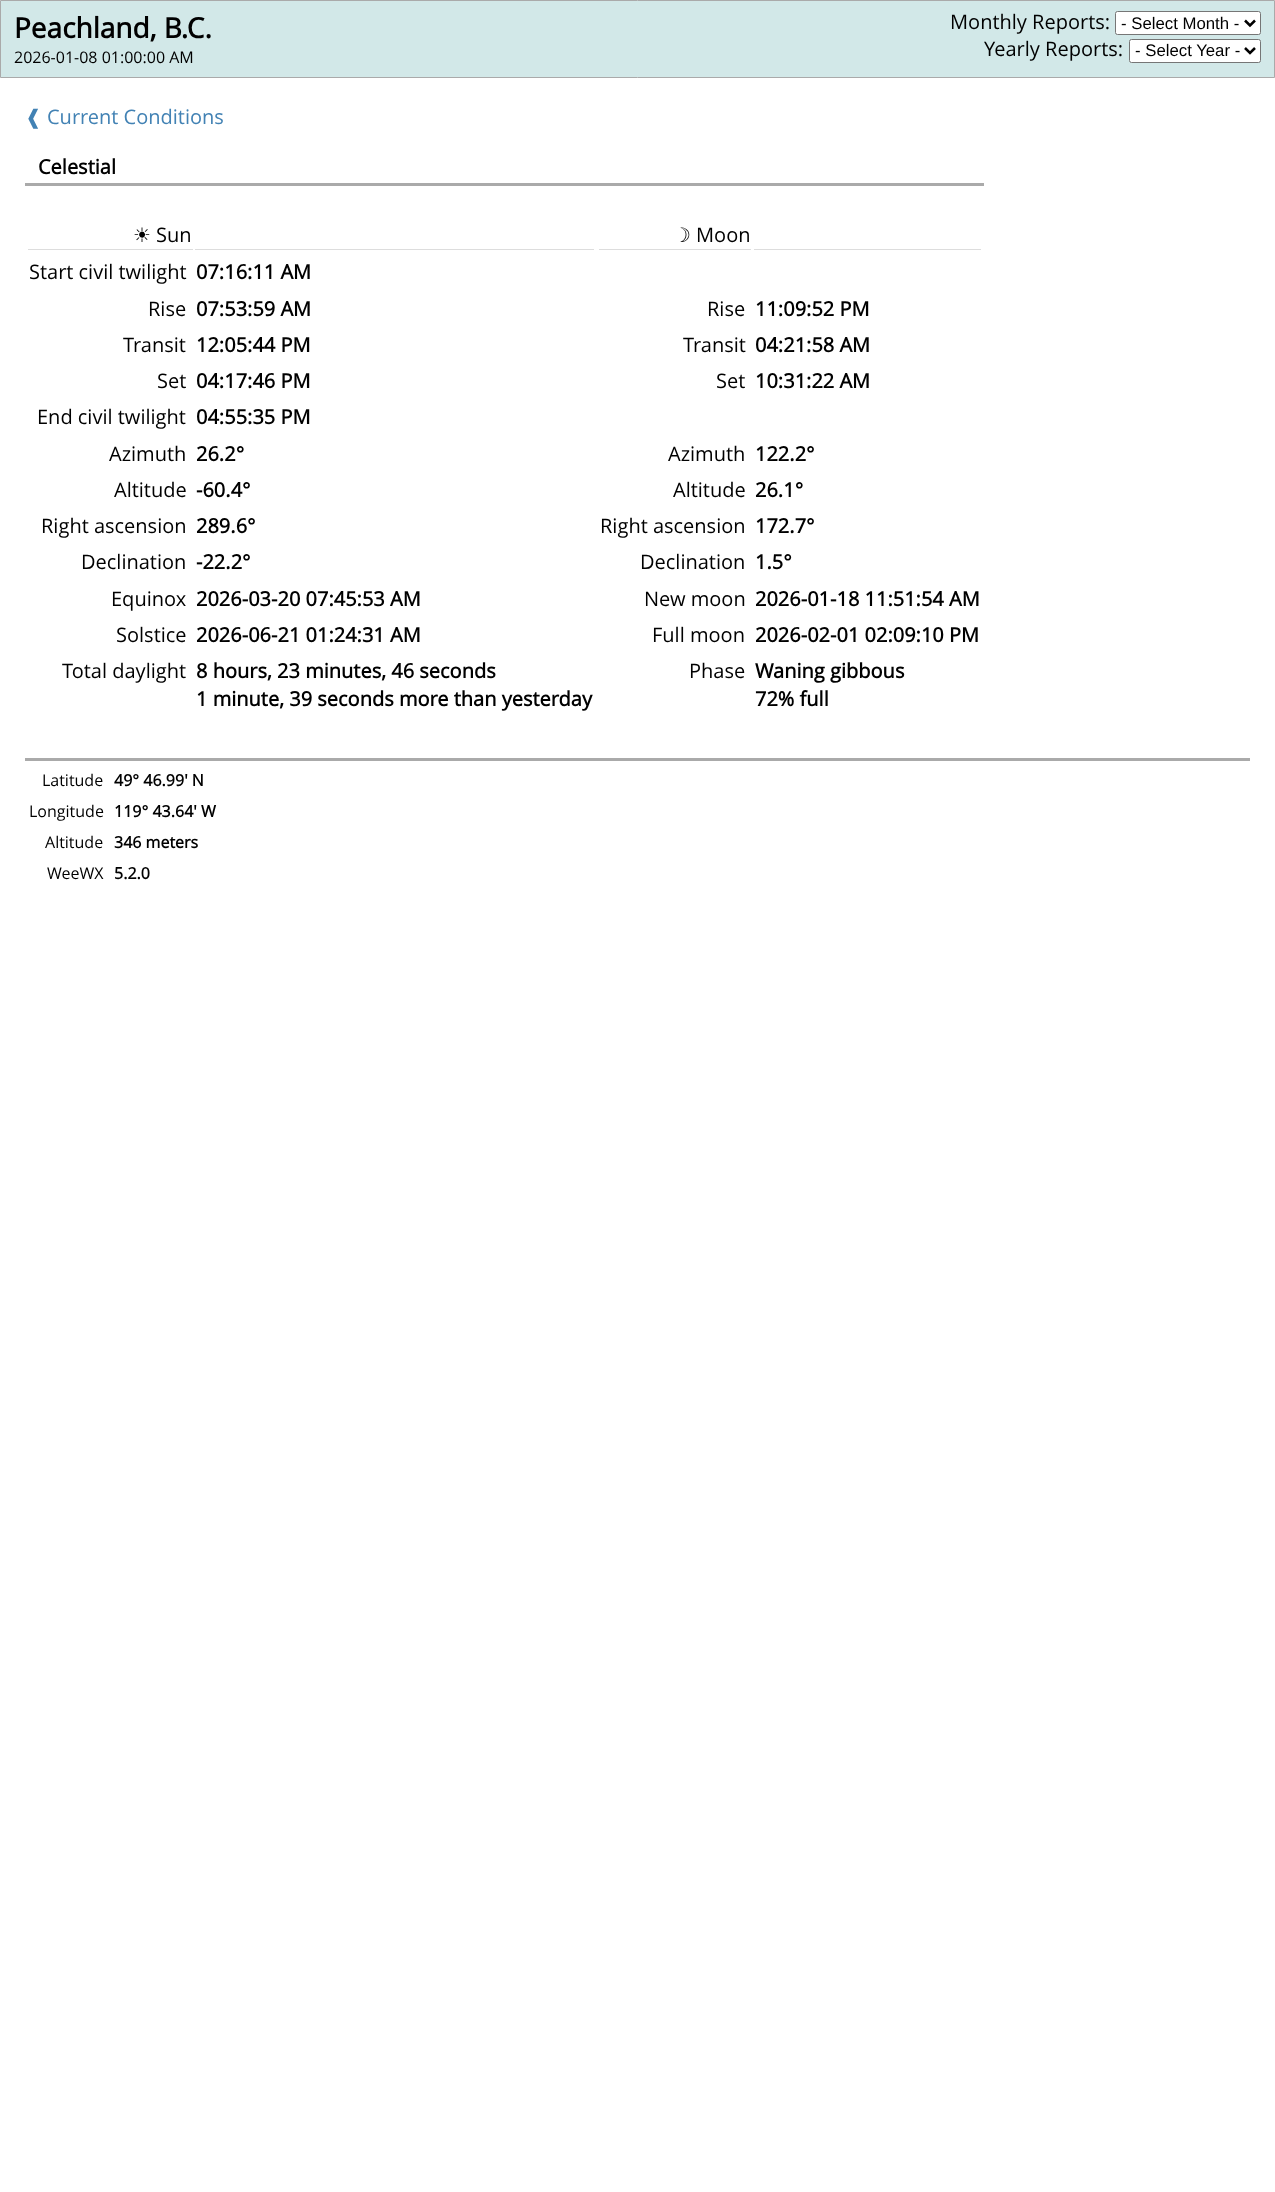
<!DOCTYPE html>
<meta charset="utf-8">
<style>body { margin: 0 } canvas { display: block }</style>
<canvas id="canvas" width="1275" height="2192"></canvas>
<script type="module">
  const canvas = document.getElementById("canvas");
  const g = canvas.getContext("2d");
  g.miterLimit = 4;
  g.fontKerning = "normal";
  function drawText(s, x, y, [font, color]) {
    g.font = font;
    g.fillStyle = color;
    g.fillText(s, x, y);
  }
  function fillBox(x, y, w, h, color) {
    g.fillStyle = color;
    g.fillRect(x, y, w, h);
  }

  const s1 = ["bold 28px Open Sans", "#000000"];
  const s2 = ["16px Open Sans", "#000000"];
  const s3 = ["20px Open Sans", "#000000"];
  const s4 = ["16.75px Liberation Sans", "#000000"];
  const s5 = ["20px DejaVu Sans", "#4282B4"];
  const s6 = ["20px Open Sans", "#4282B4"];
  const s7 = ["bold 20px Open Sans", "#000000"];
  const s8 = ["20px DejaVu Sans", "#000000"];
  const s9 = ["bold 16px Open Sans", "#000000"];

  fillBox(0, 0, 1275, 2192, "#FFFFFF");
  g.fillStyle = "#D2E8E8";
  g.beginPath();
  g.rect(0.5, 0.5, 1274, 77);
  g.fill();
  g.strokeStyle = "#AAAAAA";
  g.stroke();
  drawText("Peachland, B.C.", 14, 38, s1);
  drawText("2026-01-08 01:00:00 AM", 14, 63, s2);
  drawText("Monthly Reports:", 950, 29, s3);
  g.fillStyle = "#FFFFFF";
  g.beginPath();
  g.roundRect(1115.5, 11.5, 145, 23, 2);
  g.fill();
  g.strokeStyle = "#767676";
  g.stroke();
  g.beginPath();
  g.moveTo(1245, 20.5);
  g.lineTo(1250, 25.5);
  g.lineTo(1255, 20.5);
  g.strokeStyle = "#000000";
  g.lineWidth = 2.5;
  g.stroke();
  drawText("- Select Month -", 1121, 29, s4);
  drawText("Yearly Reports:", 984, 56, s3);
  g.fillStyle = "#FFFFFF";
  g.beginPath();
  g.roundRect(1129.5, 39.5, 131, 23, 2);
  g.fill();
  g.strokeStyle = "#767676";
  g.lineWidth = 1;
  g.stroke();
  g.beginPath();
  g.moveTo(1245, 48);
  g.lineTo(1250, 53);
  g.lineTo(1255, 48);
  g.strokeStyle = "#000000";
  g.lineWidth = 2.5;
  g.stroke();
  drawText("- Select Year -", 1135, 56, s4);
  drawText("❰", 25, 124, s5);
  drawText("Current Conditions", 47, 124, s6);
  fillBox(25, 183, 959, 3, "#AAAAAA");
  drawText("Celestial", 38, 174, s7);
  fillBox(28, 249, 165, 1, "#DDDDDD");
  drawText("☀", 133, 242, s8);
  drawText("Sun", 156, 242, s3);
  fillBox(195, 249, 399, 1, "#DDDDDD");
  drawText("Start civil twilight", 29, 279, s3);
  drawText("07:16:11 AM", 196, 279, s7);
  drawText("Rise", 148, 316, s3);
  drawText("07:53:59 AM", 196, 316, s7);
  drawText("Transit", 123, 352, s3);
  drawText("12:05:44 PM", 196, 352, s7);
  drawText("Set", 157, 388, s3);
  drawText("04:17:46 PM", 196, 388, s7);
  drawText("End civil twilight", 37, 424, s3);
  drawText("04:55:35 PM", 196, 424, s7);
  drawText("Azimuth", 109, 461, s3);
  drawText("26.2°", 196, 461, s7);
  drawText("Altitude", 114, 497, s3);
  drawText("-60.4°", 196, 497, s7);
  drawText("Right ascension", 41, 533, s3);
  drawText("289.6°", 196, 533, s7);
  drawText("Declination", 81, 569, s3);
  drawText("-22.2°", 196, 569, s7);
  drawText("Equinox", 111, 606, s3);
  drawText("2026-03-20 07:45:53 AM", 196, 606, s7);
  drawText("Solstice", 116, 642, s3);
  drawText("2026-06-21 01:24:31 AM", 196, 642, s7);
  drawText("Total daylight", 62, 678, s3);
  drawText("8 hours, 23 minutes, 46 seconds", 196, 678, s7);
  drawText("1 minute, 39 seconds more than yesterday", 196, 706, s7);
  fillBox(599, 249, 152, 1, "#DDDDDD");
  drawText("☽", 673, 242, s8);
  drawText("Moon", 696, 242, s3);
  fillBox(754, 249, 227, 1, "#DDDDDD");
  drawText("Rise", 707, 316, s3);
  drawText("11:09:52 PM", 755, 316, s7);
  drawText("Transit", 683, 352, s3);
  drawText("04:21:58 AM", 755, 352, s7);
  drawText("Set", 716, 388, s3);
  drawText("10:31:22 AM", 755, 388, s7);
  drawText("Azimuth", 668, 461, s3);
  drawText("122.2°", 755, 461, s7);
  drawText("Altitude", 673, 497, s3);
  drawText("26.1°", 755, 497, s7);
  drawText("Right ascension", 600, 533, s3);
  drawText("172.7°", 755, 533, s7);
  drawText("Declination", 640, 569, s3);
  drawText("1.5°", 755, 569, s7);
  drawText("New moon", 644, 606, s3);
  drawText("2026-01-18 11:51:54 AM", 755, 606, s7);
  drawText("Full moon", 652, 642, s3);
  drawText("2026-02-01 02:09:10 PM", 755, 642, s7);
  drawText("Phase", 689, 678, s3);
  drawText("Waning gibbous", 755, 678, s7);
  drawText("72% full", 755, 706, s7);
  fillBox(25, 758, 1225, 3, "#AAAAAA");
  drawText("Latitude", 42, 786, s2);
  drawText("49° 46.99' N", 114, 786, s9);
  drawText("Longitude", 29, 817, s2);
  drawText("119° 43.64' W", 114, 817, s9);
  drawText("Altitude", 45, 848, s2);
  drawText("346 meters", 114, 848, s9);
  drawText("WeeWX", 47, 879, s2);
  drawText("5.2.0", 114, 879, s9);
</script>
